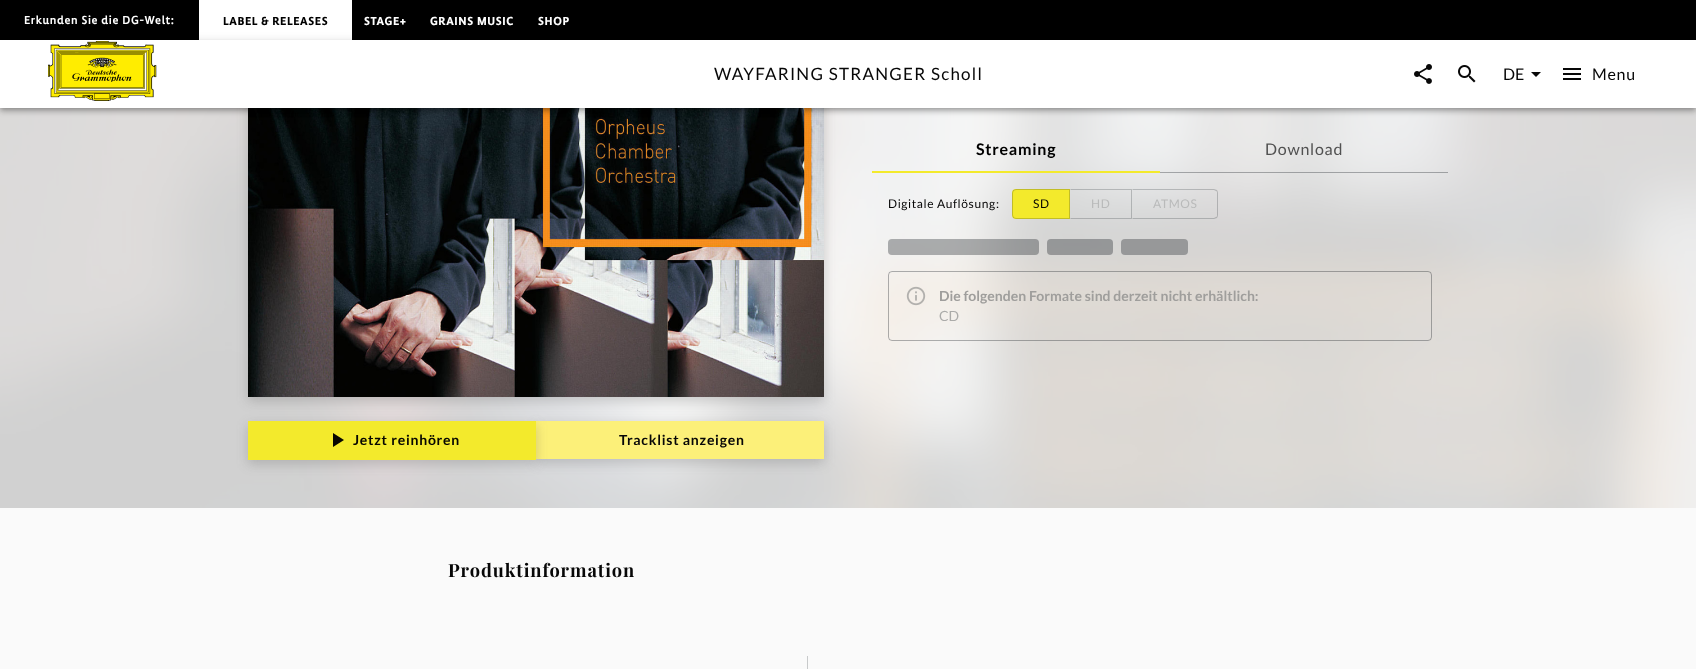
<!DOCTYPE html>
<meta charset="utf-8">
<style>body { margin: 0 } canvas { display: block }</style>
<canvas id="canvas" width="1696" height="669"></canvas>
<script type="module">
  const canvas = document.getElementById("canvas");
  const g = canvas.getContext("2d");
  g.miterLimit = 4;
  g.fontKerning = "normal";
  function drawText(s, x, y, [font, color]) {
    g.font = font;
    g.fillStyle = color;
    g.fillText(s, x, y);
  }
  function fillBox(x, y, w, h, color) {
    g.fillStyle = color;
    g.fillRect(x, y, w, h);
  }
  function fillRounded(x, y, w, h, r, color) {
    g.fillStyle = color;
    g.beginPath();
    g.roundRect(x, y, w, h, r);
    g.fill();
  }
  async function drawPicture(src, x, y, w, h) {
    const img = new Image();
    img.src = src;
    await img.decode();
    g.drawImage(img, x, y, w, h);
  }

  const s1 = ["500 12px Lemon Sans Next", "#FFFFFF"];
  const s2 = ["bold 12px Lemon Sans Next", "#000000"];
  const s3 = ["bold 12px Lemon Sans Next", "#FFFFFF"];
  const s4 = ["17px Lato", "#070707"];
  const s5 = ["16px Lato", "#070707"];
  const s6 = ["bold 16px Lato", "#000000"];
  const s7 = ["16px Lato", "#515151"];
  const s8 = ["12px Lato", "#070707"];
  const s9 = ["12px Lato", "#070701"];
  const s10 = ["12px Lato", "#B9BABA"];
  const s11 = ["bold 14px Lato", "#9F9E9C"];
  const s12 = ["14px Lato", "#ABABA9"];
  const s13 = ["bold 14px Lato", "#070701"];
  const s14 = ["bold 14px Lato", "#070707"];
  const s15 = ["bold 18.25px Playfair Display", "#070707"];

  fillBox(0, 0, 1696, 669, "#FAFAFA");
  await drawPicture("pic5.png", 0, 108, 1696, 400);
  g.fillStyle = "rgba(67, 67, 67, 0.23)";
  g.filter = "blur(6px)";
  g.beginPath();
  g.rect(248, -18, 576, 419);
  g.fill();
  g.filter = "none";
  fillBox(0, 0, 1696, 40, "#000000");
  g.letterSpacing = "0.6px";
  drawText("Erkunden Sie die DG-Welt:", 24, 24, s1);
  fillBox(199, 0, 153, 40, "#FFFFFF");
  drawText("LABEL & RELEASES", 223, 25, s2);
  drawText("STAGE+", 364, 25, s3);
  drawText("GRAINS MUSIC", 430, 25, s3);
  drawText("SHOP", 538, 25, s3);
  await drawPicture("pic7.png", 248, 108, 576, 289);
  g.fillStyle = "rgba(0, 0, 0, 0.12)";
  g.filter = "blur(5px)";
  g.beginPath();
  g.rect(0, 41, 1696, 68);
  g.fill();
  g.filter = "none";
  g.fillStyle = "rgba(0, 0, 0, 0.14)";
  g.filter = "blur(2.5px)";
  g.beginPath();
  g.rect(0, 44, 1696, 68);
  g.fill();
  g.filter = "none";
  g.fillStyle = "rgba(0, 0, 0, 0.2)";
  g.filter = "blur(2px)";
  g.beginPath();
  g.rect(1, 43, 1694, 66);
  g.fill();
  g.filter = "none";
  fillBox(0, 40, 1696, 68, "#FFFFFF");
  await drawPicture("pic1.png", 48, 41, 109, 60);
  g.letterSpacing = "1.25px";
  drawText("WAYFARING STRANGER Scholl", 714, 80, s4);
  await drawPicture("pic2.png", 1414, 64, 18, 20);
  await drawPicture("pic3.png", 1458, 65, 18, 18);
  g.letterSpacing = "0px";
  drawText("DE", 1503, 80, s5);
  g.fillStyle = "#080808";
  g.beginPath();
  g.moveTo(1531, 72);
  g.lineTo(1536, 77);
  g.lineTo(1541, 72);
  g.closePath();
  g.fill();
  await drawPicture("pic4.png", 1563, 68, 18, 12);
  g.letterSpacing = "0.75px";
  drawText("Menu", 1592, 80, s5);
  drawText("Streaming", 976, 155, s6);
  fillBox(1160, 172, 288, 1, "rgba(0, 8, 13, 0.3)");
  drawText("Download", 1265, 155, s7);
  fillBox(872, 171, 288, 2, "#F3EA2C");
  g.letterSpacing = "0.6px";
  drawText("Digitale Auflösung", 888, 208, s8);
  drawText(":", 996, 208, s8);
  g.fillStyle = "#F3EA2C";
  g.beginPath();
  g.roundRect(1012, 189, 58, 30, [4, 0, 0, 4]);
  g.fill();
  g.beginPath();
  g.roundRect(1012.5, 189.5, 57, 29, [3.5, 0, 0, 3.5]);
  g.strokeStyle = "rgba(0, 8, 13, 0.2)";
  g.stroke();
  drawText("SD", 1033, 208, s9);
  g.fillStyle = "rgba(0, 8, 13, 0.2)";
  g.beginPath();
  g.moveTo(1070, 189);
  g.lineTo(1132, 189);
  g.lineTo(1131, 190);
  g.lineTo(1071, 190);
  g.closePath();
  g.fill();
  g.beginPath();
  g.moveTo(1132, 189);
  g.lineTo(1132, 219);
  g.lineTo(1131, 218);
  g.lineTo(1131, 190);
  g.closePath();
  g.fill();
  g.beginPath();
  g.moveTo(1132, 219);
  g.lineTo(1070, 219);
  g.lineTo(1071, 218);
  g.lineTo(1131, 218);
  g.closePath();
  g.fill();
  drawText("HD", 1091, 208, s10);
  g.fillStyle = "rgba(0, 8, 13, 0.2)";
  g.beginPath();
  g.moveTo(1132, 189);
  g.lineTo(1133, 190);
  g.lineTo(1214, 190);
  g.lineTo(1216, 191);
  g.lineTo(1217, 190);
  g.lineTo(1214, 189);
  g.closePath();
  g.fill();
  g.beginPath();
  g.moveTo(1218, 215);
  g.lineTo(1218, 193);
  g.bezierCurveTo(1218, 192, 1217.5, 191, 1217, 190);
  g.lineTo(1216, 191);
  g.bezierCurveTo(1217, 191, 1217, 192, 1217, 193);
  g.lineTo(1217, 215);
  g.bezierCurveTo(1217, 216, 1217, 217, 1216, 217);
  g.lineTo(1217, 218);
  g.bezierCurveTo(1217.5, 217, 1218, 216, 1218, 215);
  g.closePath();
  g.fill();
  g.beginPath();
  g.moveTo(1214, 219);
  g.lineTo(1217, 218);
  g.lineTo(1216, 217);
  g.lineTo(1214, 218);
  g.lineTo(1133, 218);
  g.lineTo(1132, 219);
  g.closePath();
  g.fill();
  drawText("ATMOS", 1153, 208, s10);
  fillRounded(888, 239, 151, 16, 4, "rgba(0, 8, 13, 0.3)");
  fillRounded(1047, 239, 66, 16, 4, "rgba(0, 8, 13, 0.3)");
  fillRounded(1121, 239, 67, 16, 4, "#979899");
  g.beginPath();
  g.roundRect(888.5, 271.5, 543, 69, 3.5);
  g.strokeStyle = "rgba(0, 8, 13, 0.3)";
  g.stroke();
  await drawPicture("pic6.png", 906, 286, 20, 20);
  g.letterSpacing = "0px";
  drawText("Die folgenden Formate sind derzeit nicht erhältlich:", 939, 301, s11);
  drawText("CD", 939, 321, s12);
  g.fillStyle = "rgba(67, 67, 67, 0.23)";
  g.filter = "blur(6px)";
  g.beginPath();
  g.rect(536, 425, 288, 38);
  g.fill();
  g.filter = "none";
  fillBox(536, 421, 288, 38, "#FCF079");
  g.fillStyle = "rgba(67, 67, 67, 0.23)";
  g.filter = "blur(6px)";
  g.beginPath();
  g.rect(248, 425, 288, 39);
  g.fill();
  g.filter = "none";
  fillBox(248, 421, 288, 39, "#F3EA2C");
  g.fillStyle = "#070701";
  g.beginPath();
  g.moveTo(333, 433);
  g.lineTo(333, 447);
  g.lineTo(344, 440);
  g.closePath();
  g.fill();
  g.letterSpacing = "0.75px";
  drawText("Jetzt reinhören", 353, 445, s13);
  drawText("Tracklist anzeigen", 619, 445, s14);
  g.letterSpacing = "0.9px";
  drawText("Produktinformation", 448, 577, s15);
  fillBox(807, 656, 1, 13, "#C8CACB");
</script>
